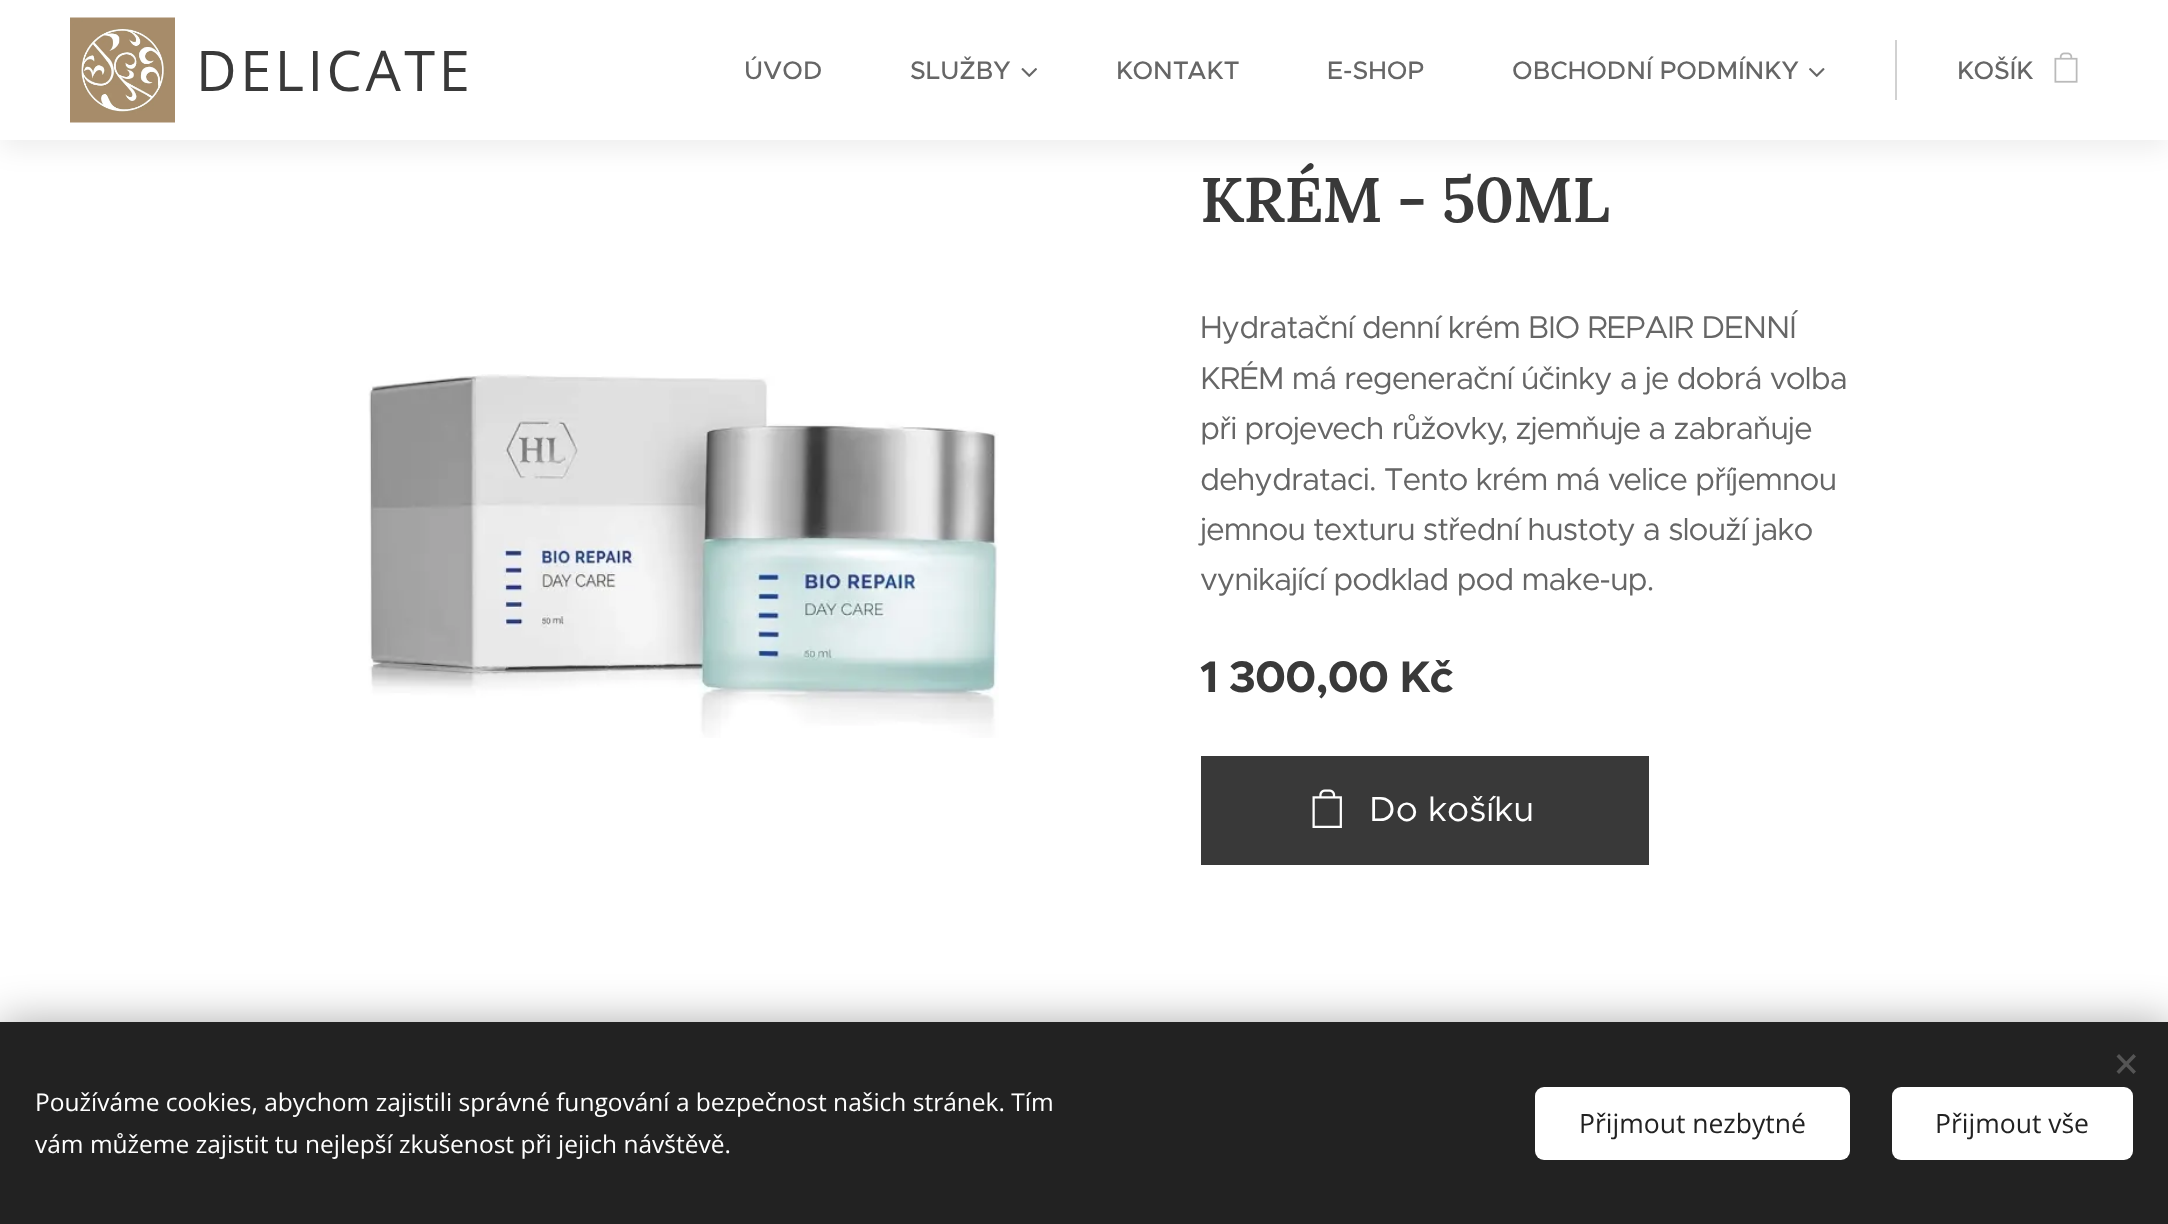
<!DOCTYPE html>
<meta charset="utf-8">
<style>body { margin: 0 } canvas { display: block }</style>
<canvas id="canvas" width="2168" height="1224"></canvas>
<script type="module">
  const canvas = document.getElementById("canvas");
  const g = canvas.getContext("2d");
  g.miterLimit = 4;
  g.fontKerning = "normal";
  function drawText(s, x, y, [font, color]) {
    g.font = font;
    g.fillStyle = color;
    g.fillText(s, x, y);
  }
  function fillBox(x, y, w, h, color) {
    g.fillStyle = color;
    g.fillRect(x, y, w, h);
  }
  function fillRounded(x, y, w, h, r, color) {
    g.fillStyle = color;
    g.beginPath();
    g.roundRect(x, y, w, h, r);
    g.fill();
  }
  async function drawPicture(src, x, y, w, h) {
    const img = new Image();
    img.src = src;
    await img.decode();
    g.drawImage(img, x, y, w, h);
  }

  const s1 = ["56px Open Sans", "#393939"];
  const s2 = ["500 25.5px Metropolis", "#666666"];
  const s3 = ["600 63px Lora", "#393939"];
  const s4 = ["31.5px Metropolis", "#666666"];
  const s5 = ["bold 44.5px Metropolis", "#393939"];
  const s6 = ["35px Metropolis", "#FFFFFF"];
  const s7 = ["24.5px Open Sans", "#FFFFFF"];
  const s8 = ["26.5px Open Sans", "#222222"];

  fillBox(0, 0, 2168, 1224, "#FFFFFF");
  g.fillStyle = "rgba(0, 0, 0, 0.07)";
  g.filter = "blur(13px)";
  g.beginPath();
  g.rect(0, 9, 2168, 140);
  g.fill();
  g.filter = "none";
  fillBox(0, 0, 2168, 140, "#FFFFFF");
  await drawPicture("pic1.png", 70, 17, 105, 106);
  g.letterSpacing = "3.5px";
  drawText("DELICATE", 196, 91, s1);
  g.letterSpacing = "0px";
  drawText("ÚVOD", 744, 79, s2);
  drawText("SLUŽBY", 910, 79, s2);
  await drawPicture("pic2.png", 1021, 68, 16, 9);
  drawText("KONTAKT", 1116, 79, s2);
  drawText("E-SHOP", 1327, 79, s2);
  drawText("OBCHODNÍ PODMÍNKY", 1512, 79, s2);
  await drawPicture("pic3.png", 1809, 68, 16, 9);
  fillBox(1895, 40, 2, 60, "#D1D1D1");
  drawText("KOŠÍK", 1957, 79, s2);
  await drawPicture("pic4.png", 2054, 52, 24, 31);
  g.letterSpacing = "-1.05px";
  drawText("KRÉM - 50ML", 1200, 222, s3);
  await drawPicture("pic5.png", 368, 374, 631, 364);
  drawText("Hydratační denní krém BIO REPAIR DENNÍ", 1200, 338, s4);
  drawText("KRÉM má regenerační účinky a je dobrá volba", 1200, 389, s4);
  drawText("při projevech růžovky, zjemňuje a zabraňuje", 1200, 439, s4);
  drawText("dehydrataci. Tento krém má velice příjemnou", 1200, 490, s4);
  drawText("jemnou texturu střední hustoty a slouží jako", 1200, 540, s4);
  drawText("vynikající podklad pod make-up.", 1200, 590, s4);
  drawText("1 300,00 Kč", 1200, 692, s5);
  fillBox(1201, 756, 448, 109, "#393939");
  await drawPicture("pic6.png", 1312, 789, 30, 39);
  g.letterSpacing = "0px";
  drawText("Do košíku", 1369, 821, s6);
  g.fillStyle = "rgba(0, 0, 0, 0.33)";
  g.filter = "blur(22px)";
  g.beginPath();
  g.rect(0, 1022, 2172, 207);
  g.fill();
  g.filter = "none";
  fillBox(0, 1022, 2168, 202, "#222222");
  g.fillStyle = "#555555";
  g.beginPath();
  g.moveTo(2116.5, 1071.5);
  g.lineTo(2133.5, 1054);
  g.lineTo(2136, 1056.5);
  g.lineTo(2119, 1074);
  g.closePath();
  g.fill();
  g.beginPath();
  g.moveTo(2119, 1054);
  g.lineTo(2136, 1071.5);
  g.lineTo(2133.5, 1074);
  g.lineTo(2116.5, 1056.5);
  g.closePath();
  g.fill();
  drawText("Používáme cookies, abychom zajistili správné fungování a bezpečnost našich stránek. Tím", 35, 1111, s7);
  drawText("vám můžeme zajistit tu nejlepší zkušenost při jejich návštěvě.", 35, 1153, s7);
  fillRounded(1535, 1087, 315, 73, 9, "#FFFFFF");
  drawText("Přijmout nezbytné", 1579, 1133, s8);
  fillRounded(1892, 1087, 241, 73, 9, "#FFFFFF");
  drawText("Přijmout vše", 1935, 1133, s8);
</script>
